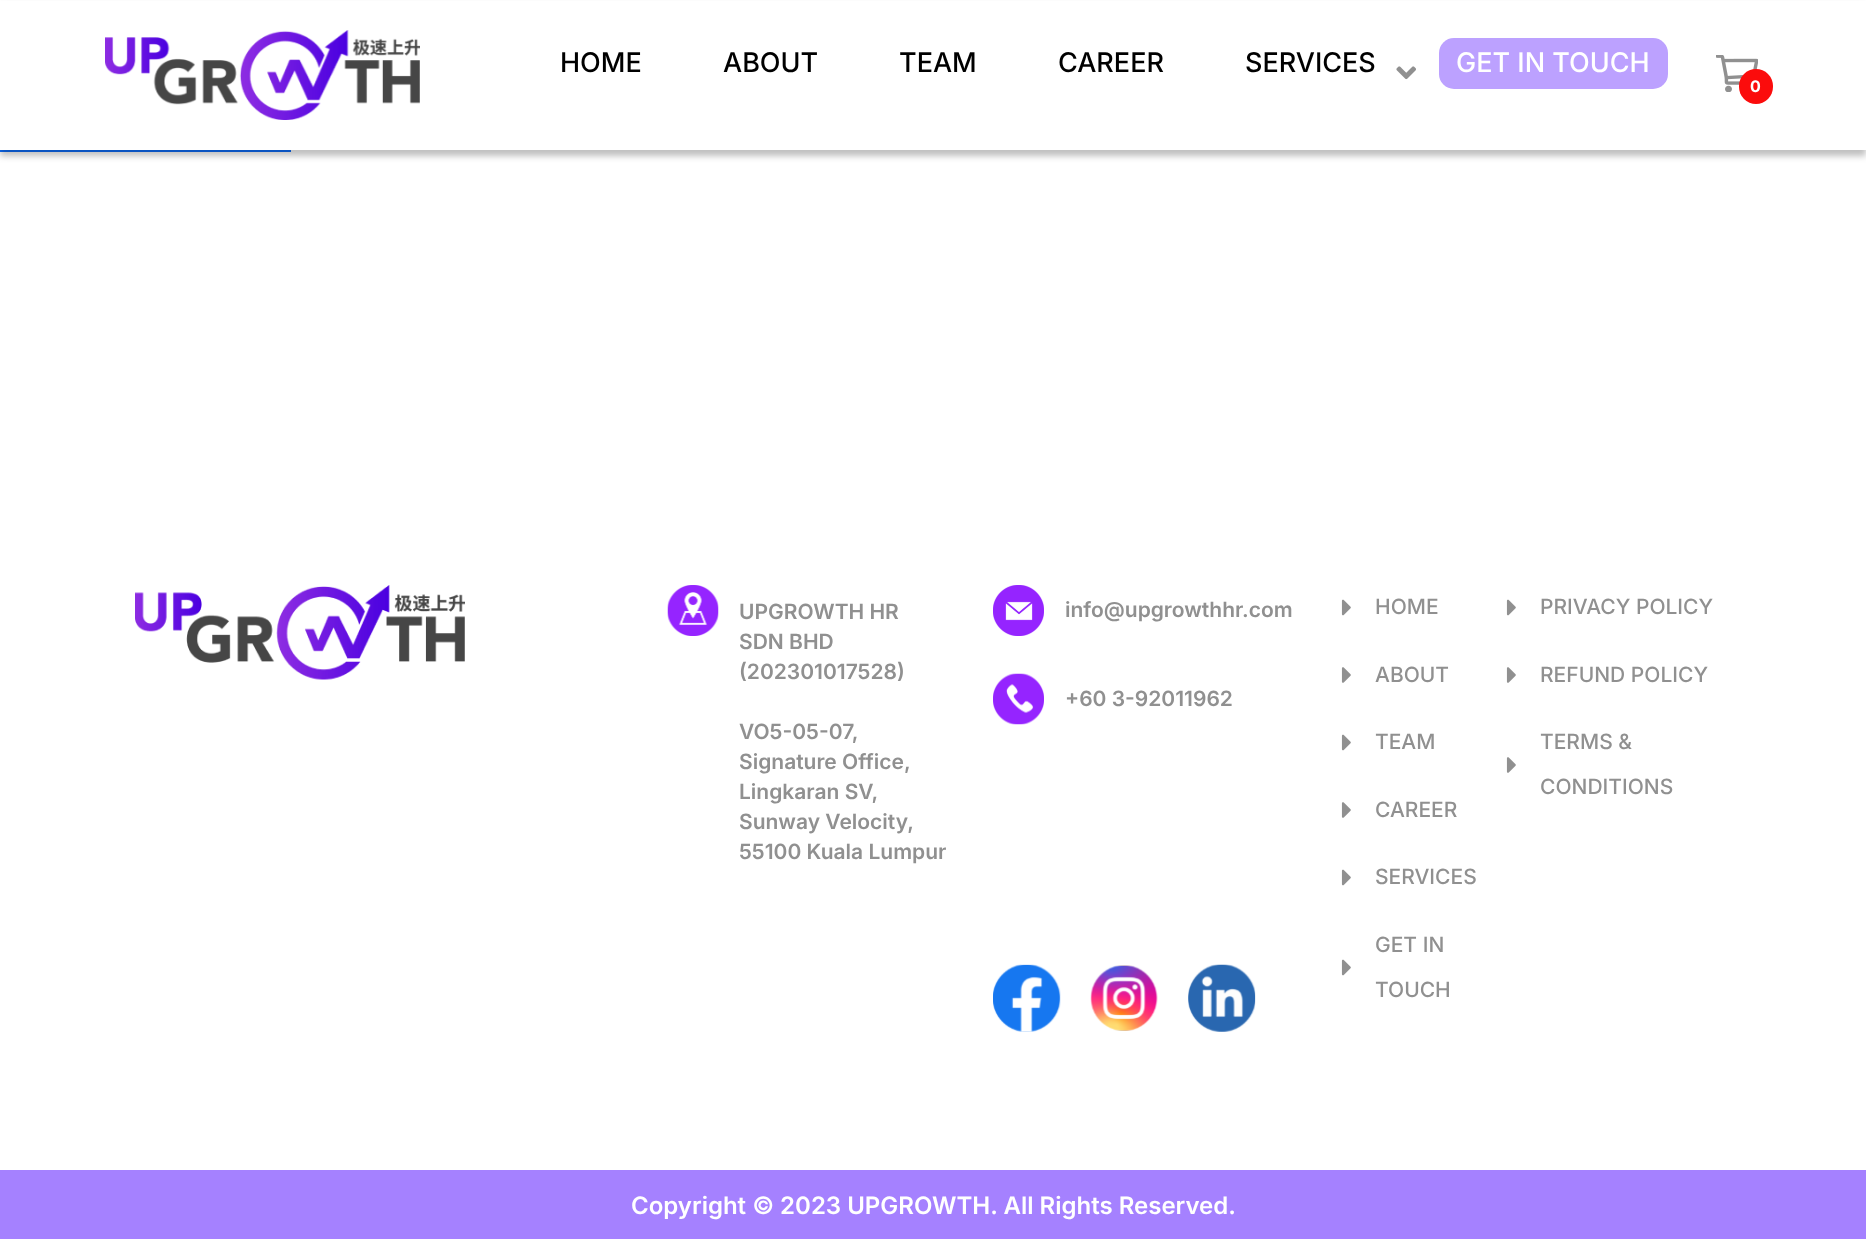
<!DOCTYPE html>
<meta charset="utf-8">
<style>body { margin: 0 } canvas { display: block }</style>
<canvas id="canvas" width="1866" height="1239"></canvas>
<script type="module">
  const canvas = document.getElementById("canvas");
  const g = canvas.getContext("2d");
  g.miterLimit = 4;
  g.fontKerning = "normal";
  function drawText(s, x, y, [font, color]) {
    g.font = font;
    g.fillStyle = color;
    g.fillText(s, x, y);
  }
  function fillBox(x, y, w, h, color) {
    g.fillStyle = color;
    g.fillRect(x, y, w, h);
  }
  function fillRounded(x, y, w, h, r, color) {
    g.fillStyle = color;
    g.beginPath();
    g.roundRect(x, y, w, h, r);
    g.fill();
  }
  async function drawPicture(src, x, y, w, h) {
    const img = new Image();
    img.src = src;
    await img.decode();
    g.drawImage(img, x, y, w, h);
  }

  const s1 = ["500 27px Inter", "#000000"];
  const s2 = ["500 27px Inter", "#FFFFFF"];
  const s3 = ["bold 16px Inter", "#FFFFFF"];
  const s4 = ["600 21px Inter", "#909090"];
  const s5 = ["500 21px Inter", "#909090"];
  const s6 = ["600 24px Inter", "#FFFFFF"];

  fillBox(0, 0, 1866, 1239, "#FFFFFF");
  fillBox(0, 150, 291, 2, "#0D6EFD");
  g.fillStyle = "rgba(0, 0, 0, 0.25)";
  g.filter = "blur(3px)";
  g.beginPath();
  g.rect(0, 6, 1866, 150);
  g.fill();
  g.filter = "none";
  fillBox(0, 1, 1866, 149, "#FFFFFF");
  await drawPicture("pic1.png", 105, 30, 315, 90);
  drawText("HOME", 560, 72, s1);
  drawText("ABOUT", 723, 72, s1);
  drawText("TEAM", 899, 72, s1);
  drawText("CAREER", 1058, 72, s1);
  drawText("SERVICES", 1245, 72, s1);
  await drawPicture("pic2.png", 1396, 66, 20, 14);
  fillRounded(1439, 38, 229, 51, 15, "#BCA1FF");
  drawText("GET IN TOUCH", 1456, 72, s2);
  await drawPicture("pic3.png", 1716, 55, 42, 37);
  fillRounded(1739, 69, 34, 35, 17, "#FB0C0C");
  drawText("0", 1750, 92, s3);
  await drawPicture("pic4.png", 135, 585, 330, 95);
  await drawPicture("pic5.png", 667, 585, 52, 51);
  drawText("UPGROWTH HR", 739, 619, s4);
  drawText("SDN BHD", 739, 649, s4);
  drawText("(202301017528)", 739, 679, s4);
  drawText("VO5-05-07,", 739, 739, s4);
  drawText("Signature Office,", 739, 769, s4);
  drawText("Lingkaran SV,", 739, 799, s4);
  drawText("Sunway Velocity,", 739, 829, s4);
  drawText("55100 Kuala Lumpur", 739, 859, s4);
  await drawPicture("pic6.png", 993, 585, 51, 51);
  drawText("info@upgrowthhr.com", 1065, 617, s4);
  await drawPicture("pic7.png", 993, 673, 51, 52);
  drawText("+60 3-92011962", 1065, 706, s4);
  await drawPicture("pic8.png", 993, 964, 68, 68);
  await drawPicture("pic9.png", 1090, 965, 68, 66);
  await drawPicture("pic10.png", 1188, 964, 68, 68);
  await drawPicture("pic11.png", 1341, 599, 10, 17);
  drawText("HOME", 1375, 614, s5);
  await drawPicture("pic12.png", 1341, 667, 10, 16);
  drawText("ABOUT", 1375, 682, s5);
  await drawPicture("pic11.png", 1341, 734, 10, 17);
  drawText("TEAM", 1375, 749, s5);
  await drawPicture("pic12.png", 1341, 802, 10, 16);
  drawText("CAREER", 1375, 817, s5);
  await drawPicture("pic11.png", 1341, 869, 10, 17);
  drawText("SERVICES", 1375, 884, s5);
  await drawPicture("pic11.png", 1341, 959, 10, 17);
  drawText("GET IN", 1375, 952, s5);
  drawText("TOUCH", 1375, 997, s5);
  await drawPicture("pic11.png", 1506, 599, 10, 17);
  drawText("PRIVACY POLICY", 1540, 614, s5);
  await drawPicture("pic12.png", 1506, 667, 10, 16);
  drawText("REFUND POLICY", 1540, 682, s5);
  await drawPicture("pic12.png", 1506, 757, 10, 16);
  drawText("TERMS &", 1540, 749, s5);
  drawText("CONDITIONS", 1540, 794, s5);
  fillBox(0, 1170, 1866, 69, "#A581FF");
  drawText("Copyright © 2023 UPGROWTH. All Rights Reserved.", 631, 1214, s6);
</script>
